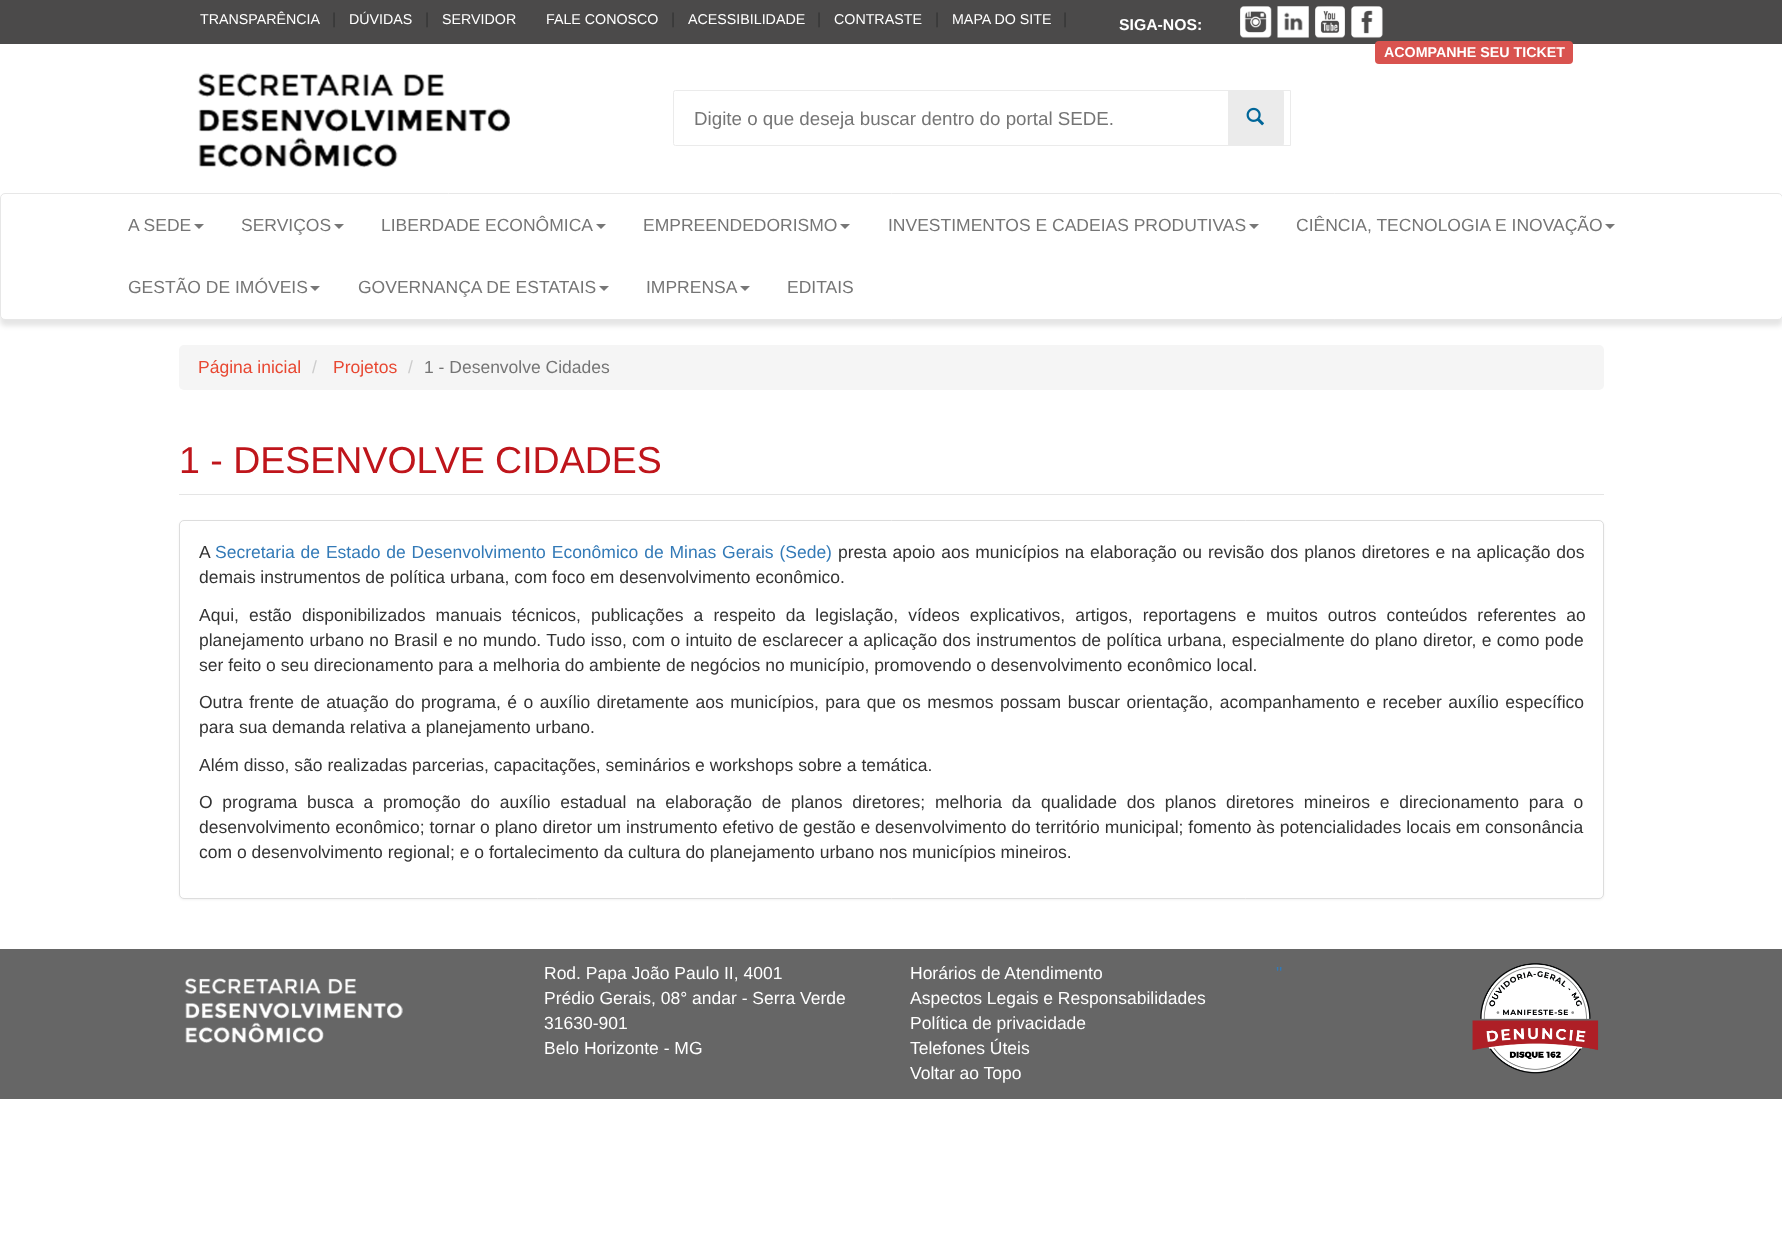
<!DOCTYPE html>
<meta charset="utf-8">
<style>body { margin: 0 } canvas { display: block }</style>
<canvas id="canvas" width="1782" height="1243"></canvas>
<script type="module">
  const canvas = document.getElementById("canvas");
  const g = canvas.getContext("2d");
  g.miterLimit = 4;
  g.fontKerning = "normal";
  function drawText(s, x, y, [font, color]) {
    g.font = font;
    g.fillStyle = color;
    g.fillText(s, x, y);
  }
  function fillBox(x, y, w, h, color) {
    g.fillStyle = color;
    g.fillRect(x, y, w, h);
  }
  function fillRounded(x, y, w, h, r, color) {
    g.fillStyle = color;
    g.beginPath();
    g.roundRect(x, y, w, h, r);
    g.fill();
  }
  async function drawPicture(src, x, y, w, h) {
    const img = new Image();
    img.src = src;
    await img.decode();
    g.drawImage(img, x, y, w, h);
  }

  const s1 = ["14.25px Liberation Sans", "#FFFFFF"];
  const s2 = ["15.75px Liberation Sans", "#333333"];
  const s3 = ["bold 15.75px Liberation Sans", "#FFFFFF"];
  const s4 = ["bold 14.25px Liberation Sans", "#FFFFFF"];
  const s5 = ["18.75px Liberation Sans", "#757575"];
  const s6 = ["17.5px Liberation Sans", "#757575"];
  const s7 = ["17.5px Liberation Sans", "#E84832"];
  const s8 = ["17.5px Liberation Sans", "#CCCCCC"];
  const s9 = ["37.5px Liberation Sans", "#BF151B"];
  const s10 = ["17.5px Liberation Sans", "#333333"];
  const s11 = ["17.5px Liberation Sans", "#337AB7"];
  const s12 = ["17.5px Liberation Sans", "#FFFFFF"];

  fillBox(0, 0, 1782, 1243, "#FFFFFF");
  fillBox(0, 0, 1782, 44, "#4B4A4A");
  drawText("TRANSPARÊNCIA", 200, 24, s1);
  drawText("|", 332, 24, s2);
  drawText("DÚVIDAS", 349, 24, s1);
  drawText("|", 425, 24, s2);
  drawText("SERVIDOR", 442, 24, s1);
  drawText("FALE CONOSCO", 546, 24, s1);
  drawText("|", 671, 24, s2);
  drawText("ACESSIBILIDADE", 688, 24, s1);
  drawText("|", 817, 24, s2);
  drawText("CONTRASTE", 834, 24, s1);
  drawText("|", 935, 24, s2);
  drawText("MAPA DO SITE", 952, 24, s1);
  drawText("|", 1063, 24, s2);
  drawText("SIGA-NOS:", 1119, 30, s3);
  await drawPicture("pic1.png", 1240, 6, 32, 32);
  await drawPicture("pic2.png", 1277, 6, 32, 32);
  await drawPicture("pic3.png", 1315, 6, 30, 32);
  await drawPicture("pic4.png", 1351, 6, 32, 32);
  fillRounded(1375, 41, 198, 23, 4, "#D9534F");
  drawText("ACOMPANHE SEU TICKET", 1384, 57, s4);
  await drawPicture("pic5.png", 197, 73, 313, 95);
  g.beginPath();
  g.roundRect(673.5, 90.5, 617, 55, [2, 0, 0, 2]);
  g.strokeStyle = "#EBEBEB";
  g.stroke();
  drawText("Digite o que deseja buscar dentro do portal SEDE.", 694, 125, s5);
  g.fillStyle = "#EBEBEB";
  g.beginPath();
  g.roundRect(1228.5, 90.5, 55, 55, [0, 2, 2, 0]);
  g.fill();
  g.stroke();
  await drawPicture("pic6.png", 1246, 107, 18, 19);
  g.fillStyle = "rgba(0, 0, 0, 0.1)";
  g.filter = "blur(2.5px)";
  g.beginPath();
  g.roundRect(0, 199, 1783, 127, 5);
  g.fill();
  g.filter = "none";
  g.fillStyle = "#FFFFFF";
  g.beginPath();
  g.roundRect(0.5, 193.5, 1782, 126, 4.5);
  g.fill();
  g.strokeStyle = "#E7E7E7";
  g.stroke();
  drawText("A SEDE", 128, 231, s6);
  g.fillStyle = "#777777";
  g.beginPath();
  g.moveTo(194, 224);
  g.lineTo(204, 224);
  g.lineTo(199, 229);
  g.closePath();
  g.fill();
  drawText("SERVIÇOS", 241, 231, s6);
  g.fillStyle = "#777777";
  g.beginPath();
  g.moveTo(334, 224);
  g.lineTo(344, 224);
  g.lineTo(339, 229);
  g.closePath();
  g.fill();
  drawText("LIBERDADE ECONÔMICA", 381, 231, s6);
  g.fillStyle = "#777777";
  g.beginPath();
  g.moveTo(596, 224);
  g.lineTo(606, 224);
  g.lineTo(601, 229);
  g.closePath();
  g.fill();
  drawText("EMPREENDEDORISMO", 643, 231, s6);
  g.fillStyle = "#777777";
  g.beginPath();
  g.moveTo(840, 224);
  g.lineTo(850, 224);
  g.lineTo(845, 229);
  g.closePath();
  g.fill();
  drawText("INVESTIMENTOS E CADEIAS PRODUTIVAS", 888, 231, s6);
  g.fillStyle = "#777777";
  g.beginPath();
  g.moveTo(1249, 224);
  g.lineTo(1259, 224);
  g.lineTo(1254, 229);
  g.closePath();
  g.fill();
  drawText("CIÊNCIA, TECNOLOGIA E INOVAÇÃO", 1296, 231, s6);
  g.fillStyle = "#777777";
  g.beginPath();
  g.moveTo(1605, 224);
  g.lineTo(1615, 224);
  g.lineTo(1610, 229);
  g.closePath();
  g.fill();
  drawText("GESTÃO DE IMÓVEIS", 128, 293, s6);
  g.fillStyle = "#777777";
  g.beginPath();
  g.moveTo(310, 286);
  g.lineTo(320, 286);
  g.lineTo(315, 291);
  g.closePath();
  g.fill();
  drawText("GOVERNANÇA DE ESTATAIS", 358, 293, s6);
  g.fillStyle = "#777777";
  g.beginPath();
  g.moveTo(599, 286);
  g.lineTo(609, 286);
  g.lineTo(604, 291);
  g.closePath();
  g.fill();
  drawText("IMPRENSA", 646, 293, s6);
  g.fillStyle = "#777777";
  g.beginPath();
  g.moveTo(740, 286);
  g.lineTo(750, 286);
  g.lineTo(745, 291);
  g.closePath();
  g.fill();
  drawText("EDITAIS", 787, 293, s6);
  fillRounded(179, 345, 1425, 45, 5, "#F5F5F5");
  drawText("Página inicial", 198, 373, s7);
  drawText("/", 312, 373, s8);
  drawText("Projetos", 333, 373, s7);
  drawText("/", 408, 373, s8);
  drawText("1 - Desenvolve Cidades", 424, 373, s6);
  fillBox(179, 494, 1425, 1, "#E5E5E5");
  drawText("1 - DESENVOLVE CIDADES", 179, 473, s9);
  g.fillStyle = "rgba(0, 0, 0, 0.05)";
  g.filter = "blur(1px)";
  g.beginPath();
  g.roundRect(179, 521, 1425, 379, 5);
  g.fill();
  g.filter = "none";
  g.fillStyle = "#FFFFFF";
  g.beginPath();
  g.roundRect(179.5, 520.5, 1424, 378, 4.5);
  g.fill();
  g.strokeStyle = "#DDDDDD";
  g.stroke();
  drawText("A", 199, 558, s10);
  g.wordSpacing = "1px";
  drawText("Secretaria de Estado de Desenvolvimento Econômico de Minas Gerais (Sede)", 215, 558, s11);
  drawText("presta apoio aos municípios na elaboração ou revisão dos planos diretores e na aplicação dos", 838, 558, s10);
  g.wordSpacing = "0px";
  drawText("demais instrumentos de política urbana, com foco em desenvolvimento econômico.", 199, 583, s10);
  g.wordSpacing = "5.25px";
  drawText("Aqui, estão disponibilizados manuais técnicos, publicações a respeito da legislação, vídeos explicativos, artigos, reportagens e muitos outros conteúdos referentes ao", 199, 621, s10);
  g.wordSpacing = "0.45px";
  drawText("planejamento urbano no Brasil e no mundo. Tudo isso, com o intuito de esclarecer a aplicação dos instrumentos de política urbana, especialmente do plano diretor, e como pode", 199, 646, s10);
  g.wordSpacing = "0px";
  drawText("ser feito o seu direcionamento para a melhoria do ambiente de negócios no município, promovendo o desenvolvimento econômico local.", 199, 671, s10);
  g.wordSpacing = "1.6px";
  drawText("Outra frente de atuação do programa, é o auxílio diretamente aos municípios, para que os mesmos possam buscar orientação, acompanhamento e receber auxílio específico", 199, 708, s10);
  g.wordSpacing = "0px";
  drawText("para sua demanda relativa a planejamento urbano.", 199, 733, s10);
  drawText("Além disso, são realizadas parcerias, capacitações, seminários e workshops sobre a temática.", 199, 771, s10);
  g.wordSpacing = "4.9px";
  drawText("O programa busca a promoção do auxílio estadual na elaboração de planos diretores; melhoria da qualidade dos planos diretores mineiros e direcionamento para o", 199, 808, s10);
  g.wordSpacing = "0px";
  drawText("desenvolvimento econômico; tornar o plano diretor um instrumento efetivo de gestão e desenvolvimento do território municipal; fomento às potencialidades locais em consonância", 199, 833, s10);
  drawText("com o desenvolvimento regional; e o fortalecimento da cultura do planejamento urbano nos municípios mineiros.", 199, 858, s10);
  fillBox(0, 949, 1782, 150, "#666666");
  drawText("Rod. Papa João Paulo II, 4001", 544, 979, s12);
  drawText("Prédio Gerais, 08° andar - Serra Verde", 544, 1004, s12);
  drawText("31630-901", 544, 1029, s12);
  drawText("Belo Horizonte - MG", 544, 1054, s12);
  drawText("Horários de Atendimento", 910, 979, s12);
  drawText("Aspectos Legais e Responsabilidades", 910, 1004, s12);
  drawText("Política de privacidade", 910, 1029, s12);
  drawText("Telefones Úteis", 910, 1054, s12);
  drawText("Voltar ao Topo", 910, 1079, s12);
  drawText("\"", 1276, 979, s11);
  await drawPicture("pic7.png", 1472, 963, 127, 111);
  await drawPicture("pic8.png", 184, 978, 219, 65);
</script>
